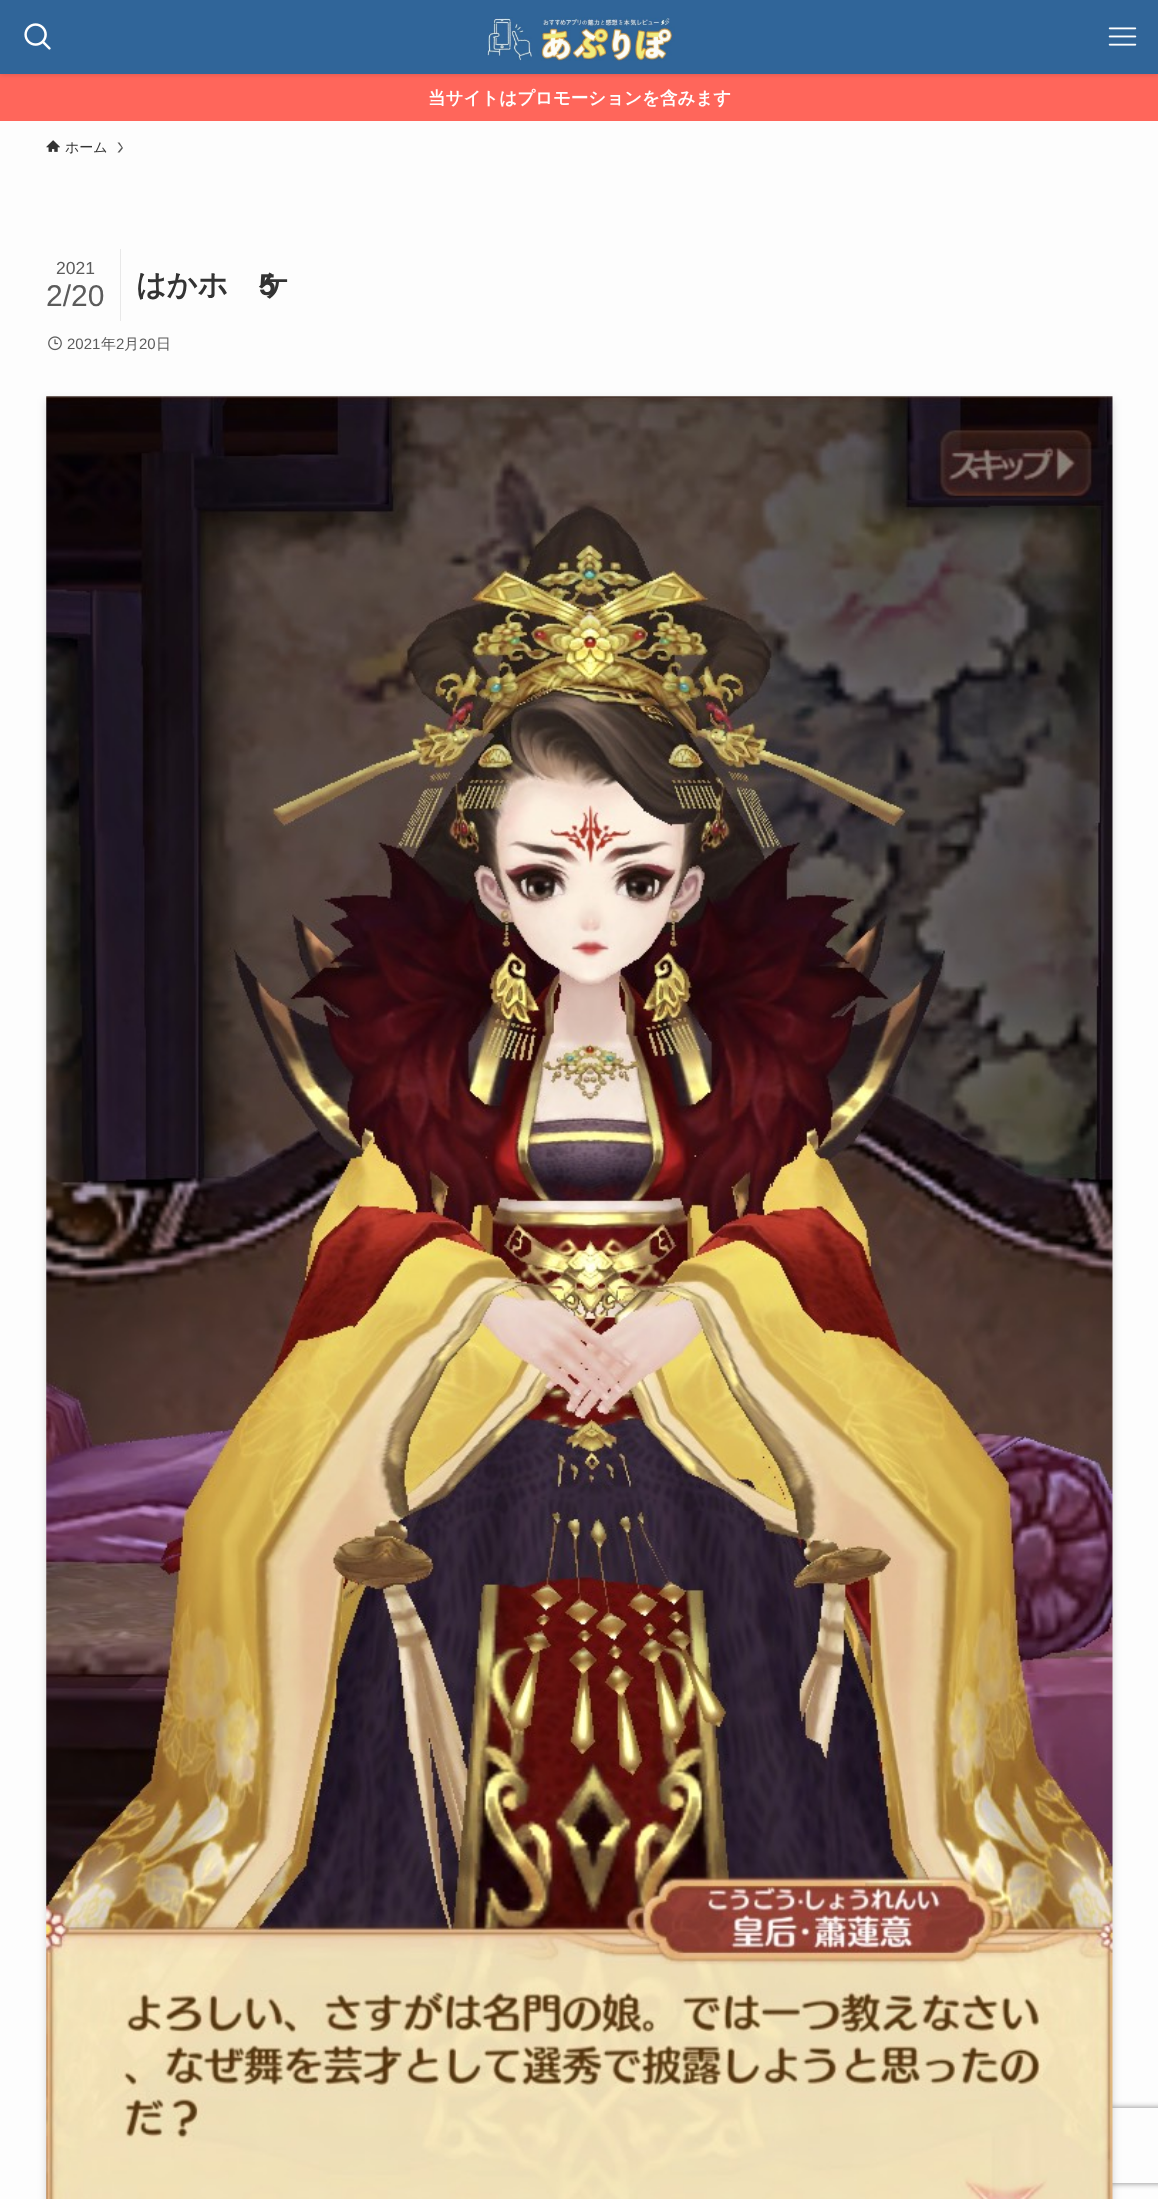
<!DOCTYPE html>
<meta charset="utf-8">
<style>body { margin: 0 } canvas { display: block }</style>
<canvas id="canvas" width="1158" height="2199"></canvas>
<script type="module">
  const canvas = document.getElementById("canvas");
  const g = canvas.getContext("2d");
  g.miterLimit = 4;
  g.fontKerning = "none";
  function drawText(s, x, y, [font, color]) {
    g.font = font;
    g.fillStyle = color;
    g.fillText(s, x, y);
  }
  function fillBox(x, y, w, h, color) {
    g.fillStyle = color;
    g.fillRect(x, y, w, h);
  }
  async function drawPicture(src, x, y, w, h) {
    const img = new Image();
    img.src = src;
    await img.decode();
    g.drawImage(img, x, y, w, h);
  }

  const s1 = ["bold 17.5px WenQuanYi Zen Hei", "#FFFFFF"];
  const s2 = ["500 14px WenQuanYi Zen Hei", "#333333"];
  const s3 = ["17.5px Liberation Sans", "#5B5B5B"];
  const s4 = ["30px Liberation Sans", "#5B5B5B"];
  const s5 = ["bold 30px WenQuanYi Zen Hei", "#333333"];
  const s6 = ["bold 30px Liberation Sans", "#333333"];
  const s7 = ["15px Liberation Sans", "#5B5B5B"];
  const s8 = ["500 15px WenQuanYi Zen Hei", "#5B5B5B"];

  fillBox(0, 0, 1158, 2199, "#FDFDFD");
  fillBox(0, 74, 1158, 47, "#FF665B");
  g.fillStyle = "rgba(0, 0, 0, 0.12)";
  g.filter = "blur(2.5px)";
  g.beginPath();
  g.rect(0, 1, 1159, 74);
  g.fill();
  g.filter = "none";
  fillBox(0, 0, 1158, 74, "#306599");
  await drawPicture("pic1.png", 24, 23, 27, 27);
  await drawPicture("pic2.png", 486, 17, 189, 44);
  await drawPicture("pic3.png", 1108, 27, 29, 19);
  drawText("当サイトはプロモーションを含みます", 428, 104, s1);
  await drawPicture("pic4.png", 46, 140, 14, 12);
  drawText("ホーム", 65, 152, s2);
  g.fillStyle = "#5B5B5B";
  g.beginPath();
  g.moveTo(119.5, 142.5);
  g.lineTo(117.5, 142.5);
  g.lineTo(121.5, 147.5);
  g.lineTo(117.5, 152.5);
  g.lineTo(119.5, 152.5);
  g.lineTo(123, 148);
  g.closePath();
  g.fill();
  fillBox(120, 249, 1, 72, "#E8E8E8");
  drawText("2021", 56, 274, s3);
  drawText("2/20", 46, 306, s4);
  drawText("はかポケ", 136, 295, s5);
  drawText("5", 259, 295, s6);
  await drawPicture("pic5.png", 48, 336, 14, 15);
  drawText("2021", 67, 349, s7);
  drawText("年", 101, 349, s8);
  drawText("2", 116, 349, s7);
  drawText("月", 124, 349, s8);
  drawText("20", 139, 349, s7);
  drawText("日", 156, 349, s8);
  g.fillStyle = "rgba(0, 0, 0, 0.2)";
  g.filter = "blur(5px)";
  g.beginPath();
  g.rect(51, 406, 1057, 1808);
  g.fill();
  g.filter = "none";
  g.fillStyle = "rgba(0, 0, 0, 0.1)";
  g.filter = "blur(5px)";
  g.beginPath();
  g.rect(46, 399, 1067, 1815);
  g.fill();
  g.filter = "none";
  g.save();
  g.beginPath();
  g.moveTo(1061, 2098);
  g.lineTo(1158, 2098);
  g.lineTo(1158, 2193);
  g.lineTo(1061, 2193);
  g.closePath();
  g.moveTo(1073.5, 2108);
  g.lineTo(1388.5, 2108);
  g.bezierCurveTo(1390, 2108, 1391, 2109, 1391, 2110.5);
  g.lineTo(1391, 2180.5);
  g.bezierCurveTo(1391, 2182, 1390, 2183, 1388.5, 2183);
  g.lineTo(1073.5, 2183);
  g.bezierCurveTo(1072, 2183, 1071, 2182, 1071, 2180.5);
  g.lineTo(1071, 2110.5);
  g.bezierCurveTo(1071, 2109, 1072, 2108, 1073.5, 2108);
  g.closePath();
  g.clip("evenodd");
  g.fillStyle = "#808080";
  g.filter = "blur(3px)";
  g.beginPath();
  g.roundRect(1071, 2108, 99, 75, 2.5);
  g.fill();
  g.filter = "none";
  g.restore();
  await drawPicture("pic6.png", 46, 396, 1067, 1803);
</script>
